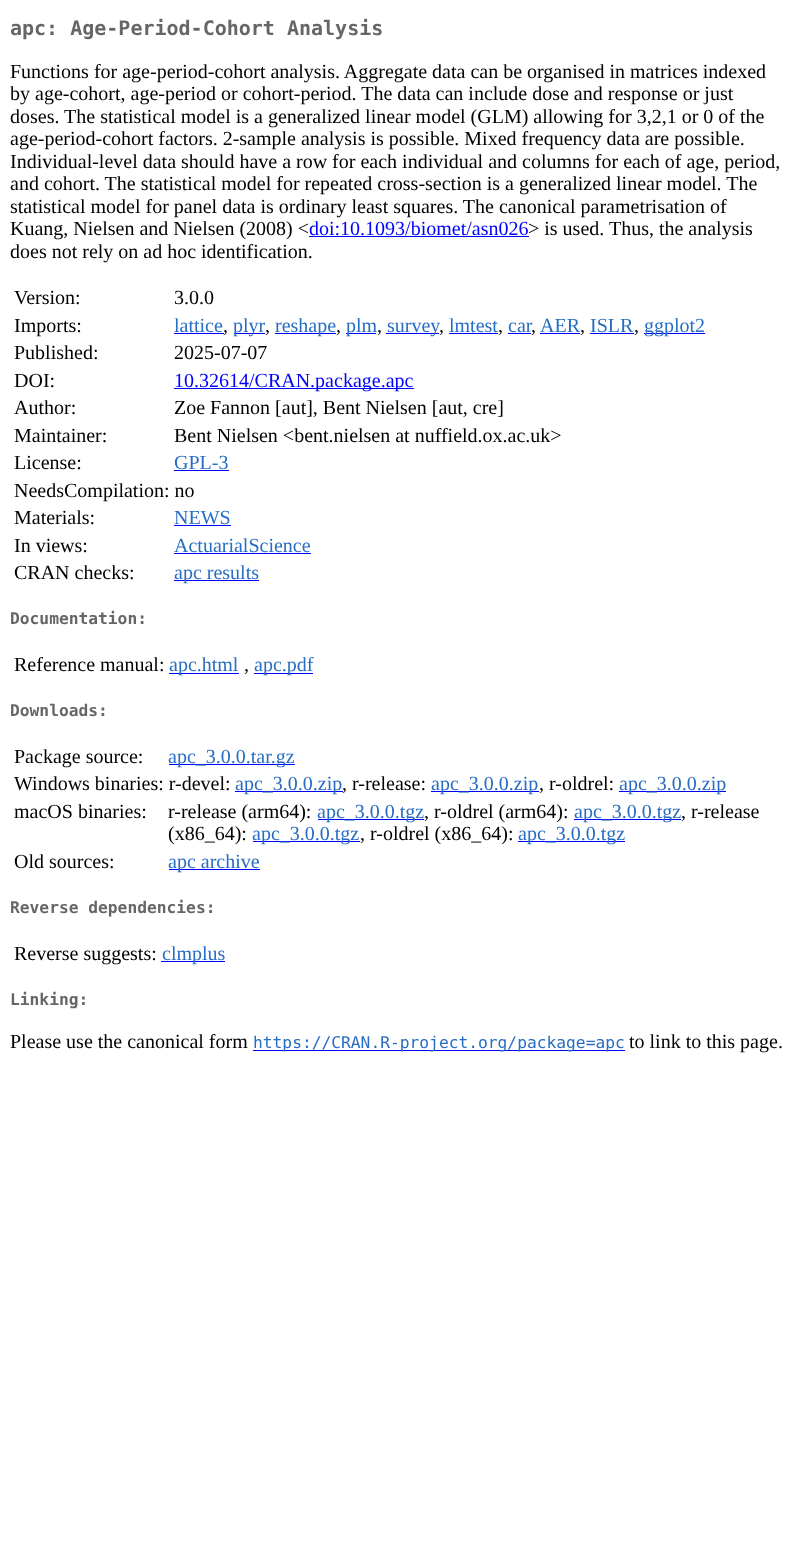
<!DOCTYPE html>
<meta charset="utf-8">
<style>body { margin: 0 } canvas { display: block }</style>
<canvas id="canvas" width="794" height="1558"></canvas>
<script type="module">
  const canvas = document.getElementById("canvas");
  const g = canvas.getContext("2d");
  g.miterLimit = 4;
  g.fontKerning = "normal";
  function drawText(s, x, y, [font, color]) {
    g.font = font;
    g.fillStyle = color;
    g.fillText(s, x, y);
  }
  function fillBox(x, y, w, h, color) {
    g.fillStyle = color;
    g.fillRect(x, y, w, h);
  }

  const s1 = ["bold 20px DejaVu Sans Mono", "#666666"];
  const s2 = ["20px Liberation Serif", "#000000"];
  const s3 = ["20px Liberation Serif", "#0000FF"];
  const s4 = ["20px Liberation Serif", "#276DC3"];
  const s5 = ["bold 16.25px DejaVu Sans Mono", "#666666"];
  const s6 = ["16.25px DejaVu Sans Mono", "#276DC3"];

  fillBox(0, 0, 794, 1558, "#FFFFFF");
  drawText("apc: Age-Period-Cohort Analysis", 10, 35, s1);
  drawText("Functions for age-period-cohort analysis. Aggregate data can be organised in matrices indexed", 10, 78, s2);
  drawText("by age-cohort, age-period or cohort-period. The data can include dose and response or just", 10, 100, s2);
  drawText("doses. The statistical model is a generalized linear model (GLM) allowing for 3,2,1 or 0 of the", 10, 123, s2);
  drawText("age-period-cohort factors. 2-sample analysis is possible. Mixed frequency data are possible.", 10, 145, s2);
  drawText("Individual-level data should have a row for each individual and columns for each of age, period,", 10, 168, s2);
  drawText("and cohort. The statistical model for repeated cross-section is a generalized linear model. The", 10, 190, s2);
  drawText("statistical model for panel data is ordinary least squares. The canonical parametrisation of", 10, 213, s2);
  drawText("Kuang, Nielsen and Nielsen (2008) <", 10, 235, s2);
  drawText("doi:10.1093/biomet/asn026", 309, 235, s3);
  fillBox(309, 236, 220, 1, "#0000FF");
  drawText("> is used. Thus, the analysis", 528, 235, s2);
  drawText("does not rely on ad hoc identification.", 10, 258, s2);
  drawText("Version:", 14, 304, s2);
  drawText("3.0.0", 174, 304, s2);
  drawText("Imports:", 14, 332, s2);
  drawText("lattice", 174, 332, s4);
  fillBox(174, 333, 50, 1, "#0000FF");
  drawText(",", 223, 332, s2);
  fillBox(234, 333, 31, 1, "#0000FF");
  drawText("plyr", 233, 332, s4);
  drawText(",", 265, 332, s2);
  fillBox(275, 333, 61, 1, "#0000FF");
  drawText("reshape", 275, 332, s4);
  drawText(",", 336, 332, s2);
  fillBox(346, 333, 30, 1, "#0000FF");
  drawText("plm", 346, 332, s4);
  drawText(",", 377, 332, s2);
  fillBox(386, 333, 53, 1, "#0000FF");
  drawText("survey", 387, 332, s4);
  drawText("lmtest", 449, 332, s4);
  fillBox(449, 333, 49, 1, "#0000FF");
  drawText("car", 508, 332, s4);
  fillBox(508, 333, 23, 1, "#0000FF");
  drawText("AER", 540, 332, s4);
  fillBox(540, 333, 40, 1, "#0000FF");
  drawText("ISLR", 590, 332, s4);
  fillBox(590, 333, 44, 1, "#0000FF");
  fillBox(644, 333, 61, 1, "#0000FF");
  drawText("ggplot2", 644, 332, s4);
  drawText(",", 439, 332, s2);
  drawText(",", 498, 332, s2);
  drawText(",", 531, 332, s2);
  drawText(",", 580, 332, s2);
  drawText(",", 634, 332, s2);
  drawText("Published:", 14, 359, s2);
  drawText("2025-07-07", 174, 359, s2);
  drawText("DOI:", 14, 387, s2);
  fillBox(174, 388, 240, 1, "#0000FF");
  drawText("10.32614/CRAN.package.apc", 174, 387, s3);
  drawText("Author:", 14, 414, s2);
  drawText("Zoe Fannon [aut], Bent Nielsen [aut, cre]", 174, 414, s2);
  drawText("Maintainer:", 14, 442, s2);
  drawText("Bent Nielsen <bent.nielsen at nuffield.ox.ac.uk>", 174, 442, s2);
  drawText("License:", 14, 469, s2);
  drawText("GPL-3", 174, 469, s4);
  fillBox(174, 470, 55, 1, "#0000FF");
  drawText("NeedsCompilation: no", 14, 497, s2);
  drawText("Materials:", 14, 524, s2);
  drawText("NEWS", 174, 524, s4);
  fillBox(174, 525, 57, 1, "#0000FF");
  drawText("In views:", 14, 552, s2);
  drawText("ActuarialScience", 174, 552, s4);
  fillBox(174, 553, 137, 1, "#0000FF");
  drawText("CRAN checks:", 14, 579, s2);
  fillBox(174, 580, 85, 1, "#0000FF");
  drawText("apc results", 174, 579, s4);
  drawText("Documentation:", 10, 624, s5);
  drawText("Reference manual:", 14, 671, s2);
  fillBox(169, 673, 70, 1, "#0000FF");
  drawText("apc.html", 169, 671, s4);
  drawText(",", 244, 671, s2);
  fillBox(254, 673, 59, 1, "#0000FF");
  drawText("apc.pdf", 254, 671, s4);
  drawText("Downloads:", 10, 716, s5);
  drawText("Package source:", 14, 763, s2);
  fillBox(169, 764, 126, 1, "#0000FF");
  drawText("apc_3.0.0.tar.gz", 168, 763, s4);
  drawText("Windows binaries: r-devel:", 14, 790, s2);
  fillBox(235, 791, 108, 1, "#0000FF");
  drawText("apc_3.0.0.zip", 235, 790, s4);
  drawText(", r-release:", 342, 790, s2);
  fillBox(431, 791, 108, 1, "#0000FF");
  drawText("apc_3.0.0.zip", 431, 790, s4);
  drawText(", r-oldrel:", 539, 790, s2);
  fillBox(619, 791, 107, 1, "#0000FF");
  drawText("apc_3.0.0.zip", 619, 790, s4);
  drawText("macOS binaries:", 14, 818, s2);
  drawText("r-release (arm64):", 168, 818, s2);
  fillBox(318, 819, 106, 1, "#0000FF");
  drawText("apc_3.0.0.tgz", 317, 818, s4);
  drawText(", r-oldrel (arm64):", 424, 818, s2);
  fillBox(574, 819, 107, 1, "#0000FF");
  drawText("apc_3.0.0.tgz", 574, 818, s4);
  drawText(", r-release", 681, 818, s2);
  drawText("(x86_64):", 168, 840, s2);
  fillBox(253, 841, 107, 1, "#0000FF");
  drawText("apc_3.0.0.tgz", 252, 840, s4);
  drawText(", r-oldrel (x86_64):", 360, 840, s2);
  fillBox(518, 841, 107, 1, "#0000FF");
  drawText("apc_3.0.0.tgz", 518, 840, s4);
  drawText("Old sources:", 14, 868, s2);
  fillBox(169, 869, 91, 1, "#0000FF");
  drawText("apc archive", 168, 868, s4);
  drawText("Reverse dependencies:", 10, 913, s5);
  drawText("Reverse suggests:", 14, 960, s2);
  fillBox(161, 961, 64, 1, "#0000FF");
  drawText("clmplus", 162, 960, s4);
  drawText("Linking:", 10, 1005, s5);
  drawText("Please use the canonical form", 10, 1048, s2);
  fillBox(253, 1050, 372, 1, "#0000FF");
  drawText("https://CRAN.R-project.org/package=apc", 253, 1048, s6);
  drawText("to link to this page.", 629, 1048, s2);
</script>
